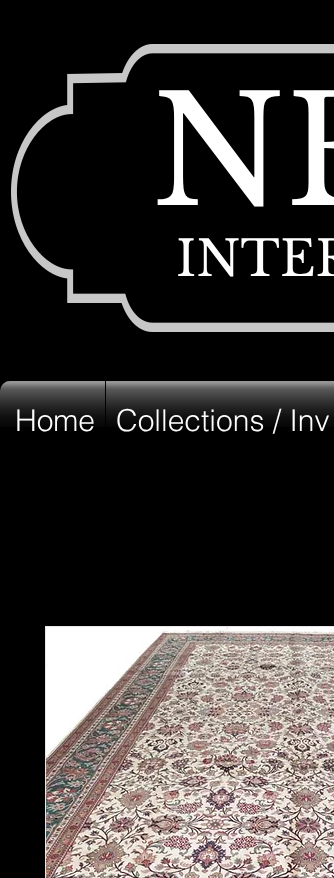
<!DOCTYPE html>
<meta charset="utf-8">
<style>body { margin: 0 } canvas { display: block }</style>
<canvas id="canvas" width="334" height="878"></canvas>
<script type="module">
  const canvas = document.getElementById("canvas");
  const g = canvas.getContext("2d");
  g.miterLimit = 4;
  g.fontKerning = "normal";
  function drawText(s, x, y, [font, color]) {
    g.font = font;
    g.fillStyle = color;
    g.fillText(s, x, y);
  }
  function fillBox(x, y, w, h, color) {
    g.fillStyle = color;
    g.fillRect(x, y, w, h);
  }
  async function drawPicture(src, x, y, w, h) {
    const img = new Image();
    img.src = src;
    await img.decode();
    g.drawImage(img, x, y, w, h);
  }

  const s1 = ["149px Libre Baskerville", "#FFFFFF"];
  const s2 = ["49px Libre Baskerville", "#FFFFFF"];
  const s3 = ["300 30px helvetica", "#FFFFFF"];

  fillBox(0, 0, 334, 878, "#000000");
  await drawPicture("pic1.png", 11, 44, 323, 288);
  drawText("NE", 151, 205, s1);
  drawText("INTER", 176, 276, s2);
  await drawPicture("pic2.png", 0, 381, 10, 46);
  g.save();
  g.beginPath();
  g.roundRect(0, 381, 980, 80, 10);
  g.clip();
  fillBox(5, 381, 100, 80, "#000000");
  g.restore();
  drawText("Home", 15, 431, s3);
  await drawPicture("pic3.png", 5, 381, 100, 46);
  drawText("Collections / Inv", 116, 431, s3);
  await drawPicture("pic4.png", 106, 381, 228, 46);
  fillBox(118, 426, 206, 8, "rgba(0, 0, 0, 0.03)");
  g.strokeStyle = "#E8E6E6";
  g.strokeRect(45.5, 626.5, 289, 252);
  await drawPicture("pic5.png", 46, 627, 288, 251);
</script>
